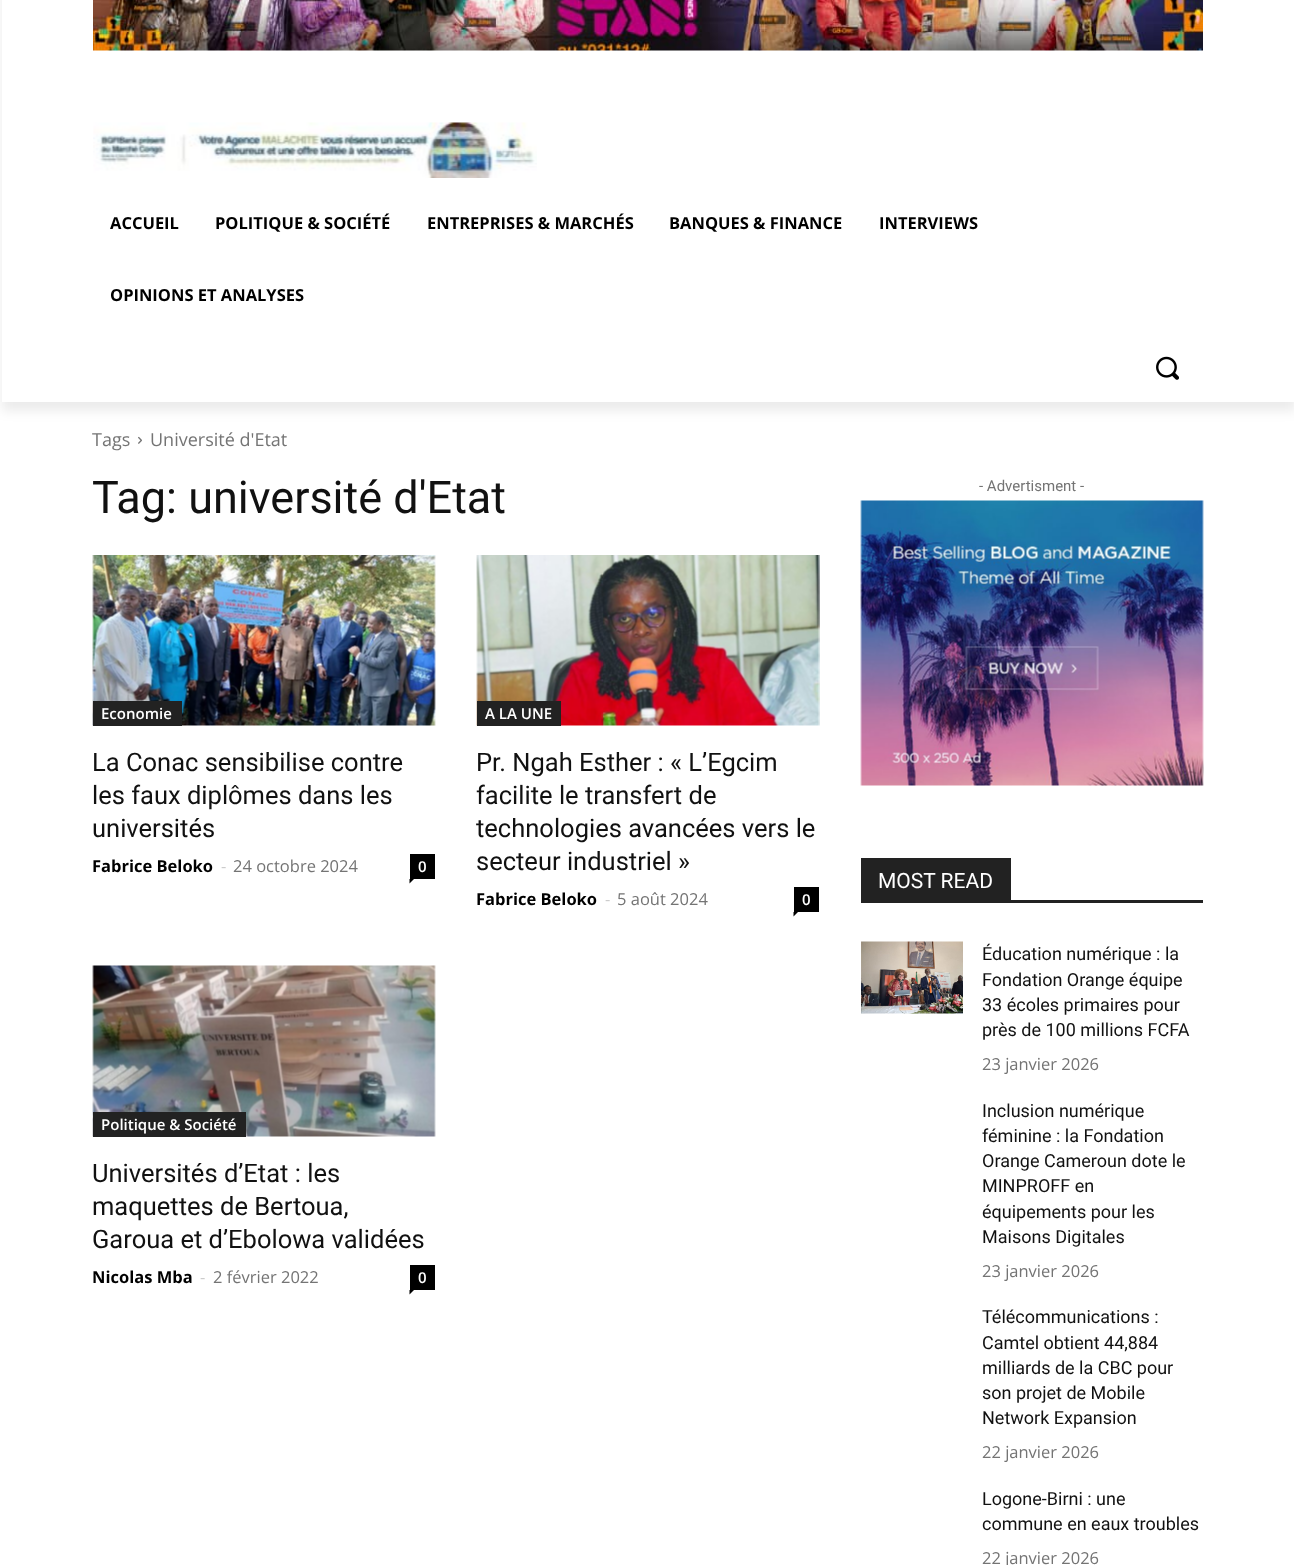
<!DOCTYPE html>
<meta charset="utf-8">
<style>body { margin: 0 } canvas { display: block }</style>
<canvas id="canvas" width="1294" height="1565"></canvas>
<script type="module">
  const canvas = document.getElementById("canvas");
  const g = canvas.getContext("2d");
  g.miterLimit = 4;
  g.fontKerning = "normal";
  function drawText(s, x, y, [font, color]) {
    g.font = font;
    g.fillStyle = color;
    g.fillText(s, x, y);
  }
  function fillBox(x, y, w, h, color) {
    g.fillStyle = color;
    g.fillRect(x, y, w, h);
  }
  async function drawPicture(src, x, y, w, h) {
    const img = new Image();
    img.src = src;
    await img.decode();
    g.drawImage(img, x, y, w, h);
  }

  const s1 = ["bold 16.5px Open Sans", "#000000"];
  const s2 = ["18px Open Sans", "#747474"];
  const s3 = ["45px Roboto", "#111111"];
  const s4 = ["600 15px Open Sans", "#FFFFFF"];
  const s5 = ["25.5px Roboto", "#111111"];
  const s6 = ["16.5px Open Sans", "#CCCCCC"];
  const s7 = ["16.5px Open Sans", "#747474"];
  const s8 = ["15px Roboto", "#747474"];
  const s9 = ["21px Roboto", "#FFFFFF"];
  const s10 = ["18px Roboto", "#111111"];

  fillBox(0, 0, 1294, 1565, "#FFFFFF");
  await drawPicture("pic1.png", 93, 0, 1110, 51);
  await drawPicture("pic2.png", 93, 122, 444, 56);
  g.save();
  g.beginPath();
  g.moveTo(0, 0);
  g.lineTo(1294, 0);
  g.lineTo(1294, 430);
  g.lineTo(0, 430);
  g.closePath();
  g.moveTo(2, -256);
  g.lineTo(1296, -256);
  g.lineTo(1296, 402);
  g.lineTo(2, 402);
  g.closePath();
  g.clip("evenodd");
  g.fillStyle = "rgba(0, 0, 0, 0.08)";
  g.filter = "blur(6px)";
  g.beginPath();
  g.rect(2, -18, 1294, 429);
  g.fill();
  g.filter = "none";
  g.restore();
  drawText("ACCUEIL", 110, 229, s1);
  drawText("POLITIQUE & SOCIÉTÉ", 215, 229, s1);
  drawText("ENTREPRISES & MARCHÉS", 427, 229, s1);
  drawText("BANQUES & FINANCE", 669, 229, s1);
  drawText("INTERVIEWS", 879, 229, s1);
  drawText("OPINIONS ET ANALYSES", 110, 301, s1);
  await drawPicture("pic3.png", 1156, 356, 23, 24);
  drawText("Tags", 92, 446, s2);
  await drawPicture("pic4.png", 138, 436, 4, 8);
  drawText("Université d'Etat", 150, 446, s2);
  drawText("Tag: université d'Etat", 92, 513, s3);
  await drawPicture("pic5.png", 92, 555, 344, 171);
  fillBox(93, 701, 89, 25, "#222222");
  drawText("Economie", 101, 719, s4);
  drawText("La Conac sensibilise contre", 92, 771, s5);
  drawText("les faux diplômes dans les", 92, 804, s5);
  drawText("universités", 92, 837, s5);
  drawText("Fabrice Beloko", 92, 872, s1);
  drawText("-", 221, 872, s6);
  drawText("24 octobre 2024", 233, 872, s7);
  fillBox(410, 854, 25, 25, "#000000");
  drawText("0", 418, 872, s4);
  g.fillStyle = "#000000";
  g.beginPath();
  g.moveTo(409.5, 879);
  g.lineTo(414, 879);
  g.lineTo(409.5, 883.5);
  g.closePath();
  g.fill();
  await drawPicture("pic6.png", 476, 555, 344, 171);
  fillBox(477, 701, 84, 25, "#222222");
  drawText("A LA UNE", 485, 719, s4);
  drawText("Pr. Ngah Esther : « L’Egcim", 476, 771, s5);
  drawText("facilite le transfert de", 476, 804, s5);
  drawText("technologies avancées vers le", 476, 837, s5);
  drawText("secteur industriel »", 476, 870, s5);
  drawText("Fabrice Beloko", 476, 905, s1);
  drawText("-", 605, 905, s6);
  drawText("5 août 2024", 617, 905, s7);
  fillBox(794, 887, 25, 25, "#000000");
  drawText("0", 802, 905, s4);
  g.fillStyle = "#000000";
  g.beginPath();
  g.moveTo(793.5, 912);
  g.lineTo(798, 912);
  g.lineTo(793.5, 916.5);
  g.closePath();
  g.fill();
  await drawPicture("pic7.png", 92, 965, 344, 172);
  fillBox(93, 1112, 153, 25, "#222222");
  drawText("Politique & Société", 101, 1130, s4);
  drawText("Universités d’Etat : les", 92, 1182, s5);
  drawText("maquettes de Bertoua,", 92, 1215, s5);
  drawText("Garoua et d’Ebolowa validées", 92, 1248, s5);
  drawText("Nicolas Mba", 92, 1283, s1);
  drawText("-", 200, 1283, s6);
  drawText("2 février 2022", 213, 1283, s7);
  fillBox(410, 1265, 25, 25, "#000000");
  drawText("0", 418, 1283, s4);
  g.fillStyle = "#000000";
  g.beginPath();
  g.moveTo(409.5, 1290);
  g.lineTo(414, 1290);
  g.lineTo(409.5, 1294.5);
  g.closePath();
  g.fill();
  drawText("- Advertisment -", 979, 491, s8);
  await drawPicture("pic8.png", 860, 500, 344, 286);
  fillBox(861, 900, 342, 3, "#222222");
  fillBox(861, 858, 150, 42, "#222222");
  drawText("MOST READ", 878, 888, s9);
  await drawPicture("pic9.png", 861, 941, 102, 73);
  drawText("Éducation numérique : la", 982, 960, s10);
  drawText("Fondation Orange équipe", 982, 986, s10);
  drawText("33 écoles primaires pour", 982, 1011, s10);
  drawText("près de 100 millions FCFA", 982, 1036, s10);
  drawText("23 janvier 2026", 982, 1070, s7);
  drawText("Inclusion numérique", 982, 1117, s10);
  drawText("féminine : la Fondation", 982, 1142, s10);
  drawText("Orange Cameroun dote le", 982, 1167, s10);
  drawText("MINPROFF en", 982, 1192, s10);
  drawText("équipements pour les", 982, 1218, s10);
  drawText("Maisons Digitales", 982, 1243, s10);
  drawText("23 janvier 2026", 982, 1277, s7);
  drawText("Télécommunications :", 982, 1323, s10);
  drawText("Camtel obtient 44,884", 982, 1349, s10);
  drawText("milliards de la CBC pour", 982, 1374, s10);
  drawText("son projet de Mobile", 982, 1399, s10);
  drawText("Network Expansion", 982, 1424, s10);
  drawText("22 janvier 2026", 982, 1458, s7);
  drawText("Logone-Birni : une", 982, 1505, s10);
  drawText("commune en eaux troubles", 982, 1530, s10);
  drawText("22 janvier 2026", 982, 1564, s7);
</script>
